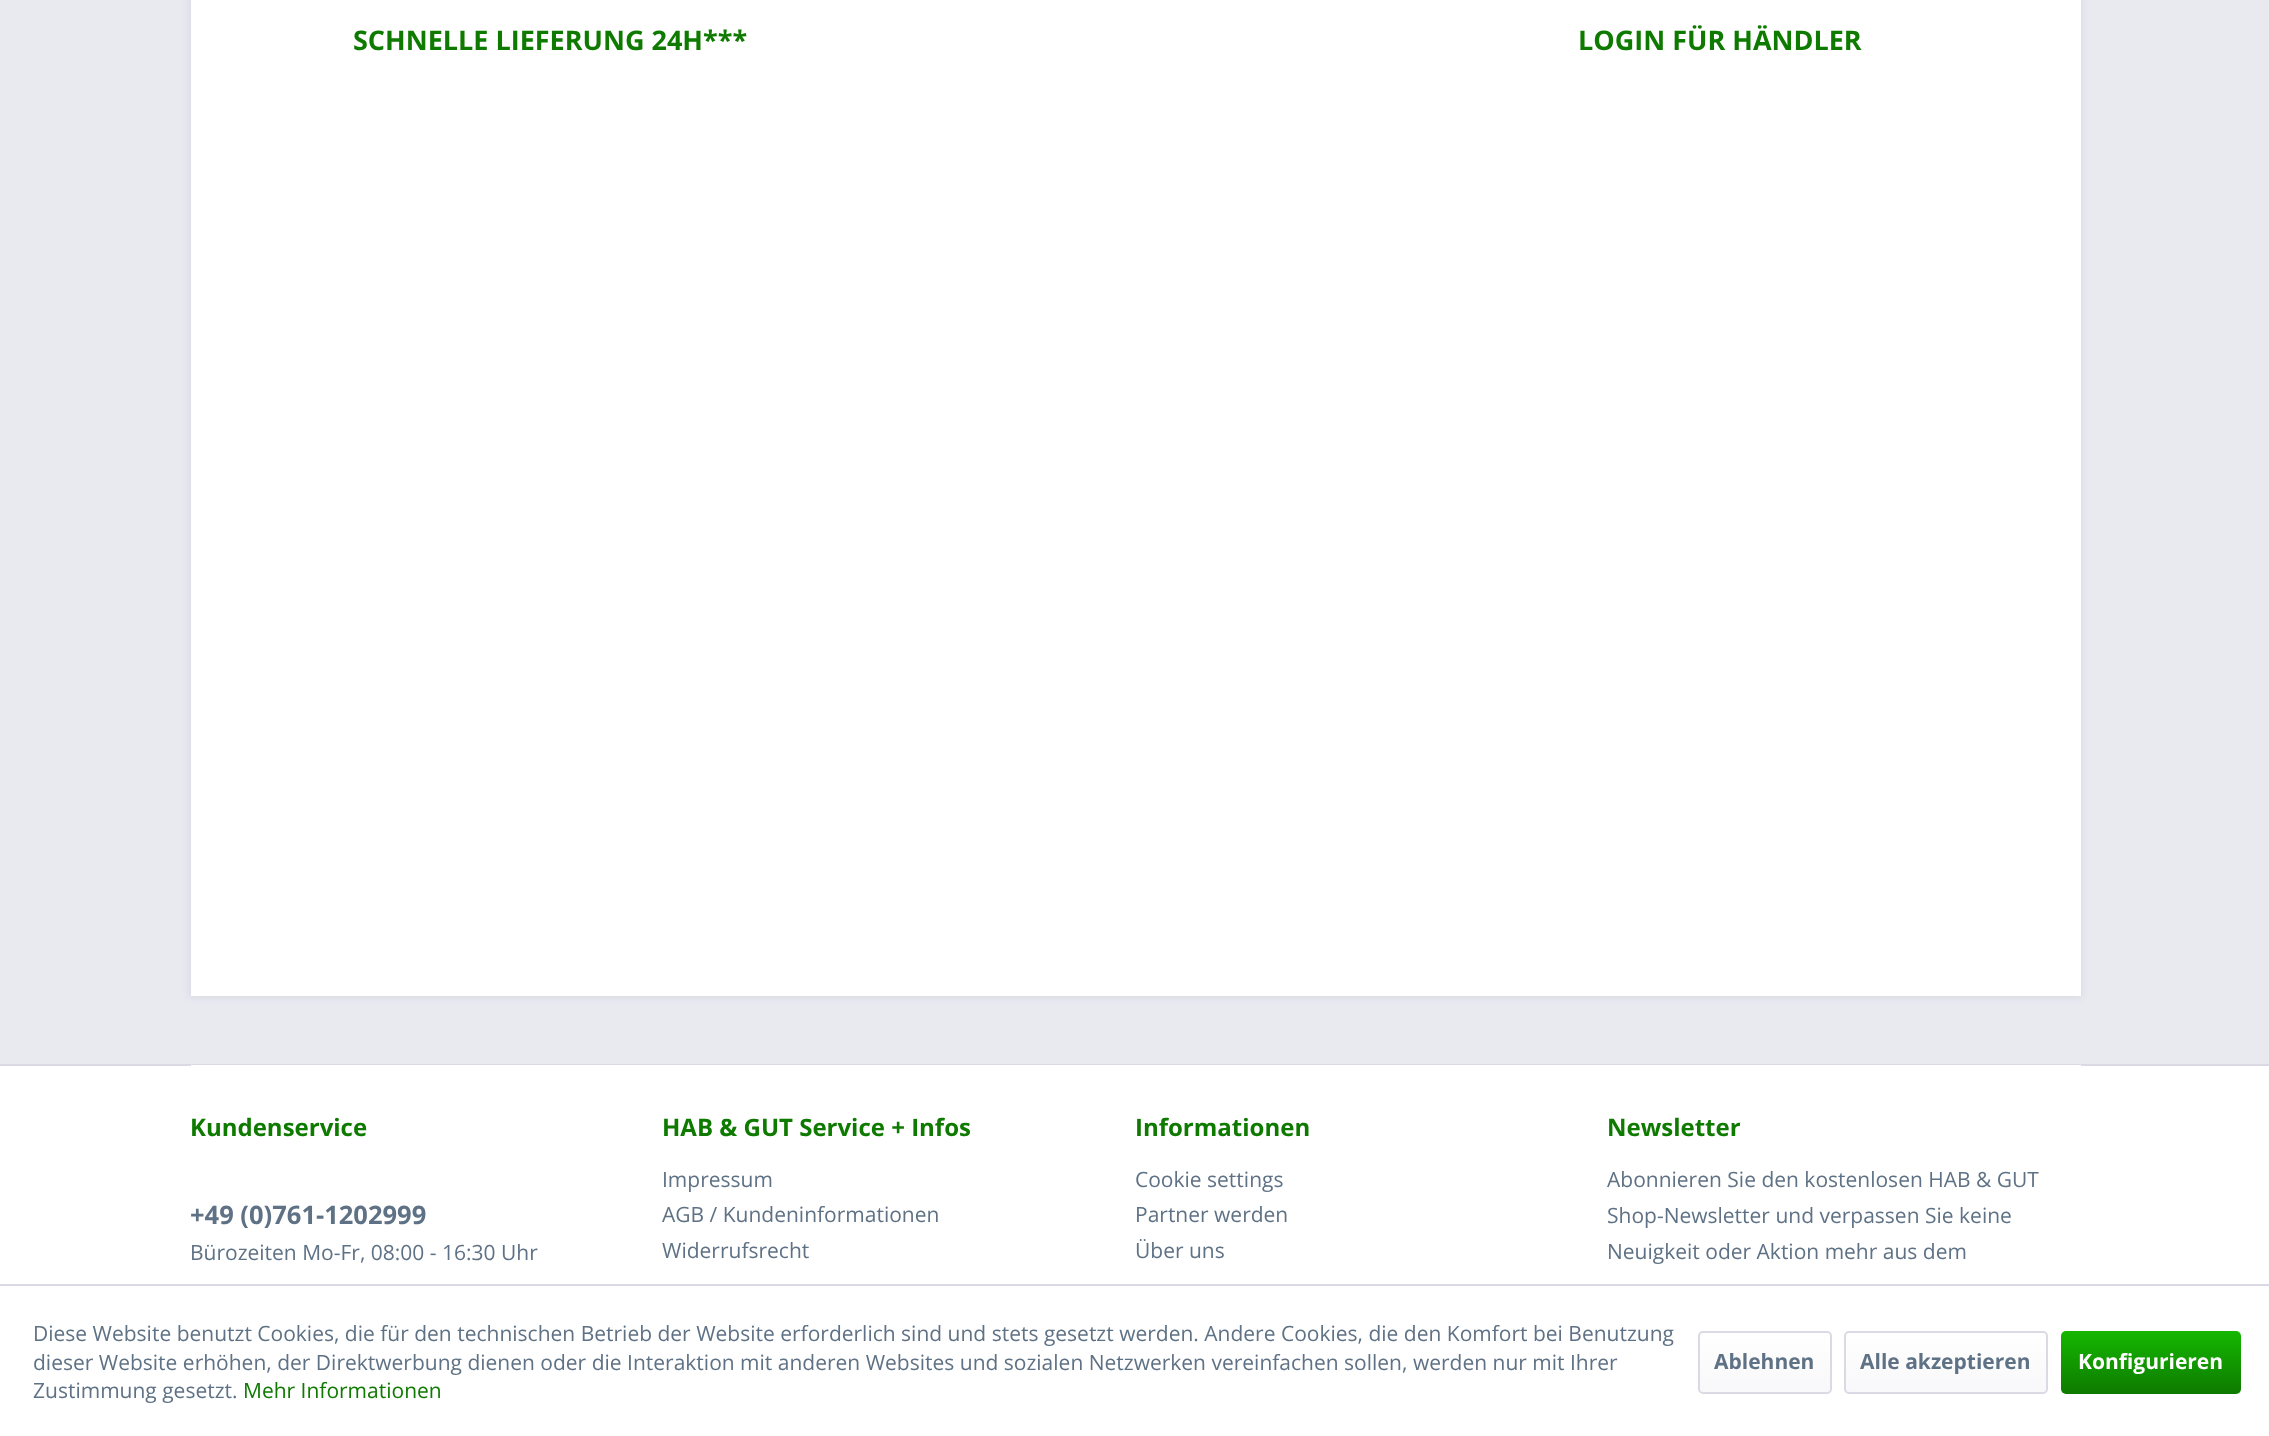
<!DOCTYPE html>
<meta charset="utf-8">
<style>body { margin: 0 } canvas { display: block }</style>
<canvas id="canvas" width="2269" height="1436"></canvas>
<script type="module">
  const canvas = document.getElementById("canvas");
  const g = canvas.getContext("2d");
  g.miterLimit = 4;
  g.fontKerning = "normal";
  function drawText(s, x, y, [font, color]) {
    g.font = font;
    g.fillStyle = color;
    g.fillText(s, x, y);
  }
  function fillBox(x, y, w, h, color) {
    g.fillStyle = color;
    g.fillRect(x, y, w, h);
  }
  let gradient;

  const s1 = ["bold 27px Open Sans", "#0E7A00"];
  const s2 = ["bold 24px Open Sans", "#0E7A00"];
  const s3 = ["bold 25.5px Open Sans", "#5F7285"];
  const s4 = ["21px Open Sans", "#5F7285"];
  const s5 = ["21px Open Sans", "#0E7A00"];
  const s6 = ["bold 21px Open Sans", "#5F7285"];
  const s7 = ["bold 21px Open Sans", "#FFFFFF"];

  fillBox(0, 0, 2269, 1436, "#E9E9F0");
  g.fillStyle = "#DADAE5";
  g.filter = "blur(3px)";
  g.beginPath();
  g.rect(189, -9, 1893, 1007);
  g.fill();
  g.filter = "none";
  fillBox(191, 0, 1890, 996, "#FFFFFF");
  drawText("SCHNELLE LIEFERUNG 24H***", 353, 50, s1);
  drawText("LOGIN FÜR HÄNDLER", 1578, 50, s1);
  fillBox(0, 1066, 2269, 218, "#FFFFFF");
  fillBox(0, 1064, 2269, 2, "#DADAE5");
  fillBox(191, 1065, 1890, 1, "#FFFFFF");
  drawText("Kundenservice", 190, 1136, s2);
  drawText("+49 (0)761-1202999", 190, 1224, s3);
  drawText("Bürozeiten Mo-Fr, 08:00 - 16:30 Uhr", 190, 1260, s4);
  drawText("HAB & GUT Service + Infos", 662, 1136, s2);
  drawText("Impressum", 662, 1187, s4);
  drawText("AGB / Kundeninformationen", 662, 1222, s4);
  drawText("Widerrufsrecht", 662, 1258, s4);
  drawText("Informationen", 1135, 1136, s2);
  drawText("Cookie settings", 1135, 1187, s4);
  drawText("Partner werden", 1135, 1222, s4);
  drawText("Über uns", 1135, 1258, s4);
  drawText("Newsletter", 1607, 1136, s2);
  drawText("Abonnieren Sie den kostenlosen HAB & GUT", 1607, 1187, s4);
  drawText("Shop-Newsletter und verpassen Sie keine", 1607, 1223, s4);
  drawText("Neuigkeit oder Aktion mehr aus dem", 1607, 1259, s4);
  fillBox(0, 1286, 2269, 150, "#FFFFFF");
  fillBox(0, 1284, 2269, 2, "#DADAE5");
  drawText("Diese Website benutzt Cookies, die für den technischen Betrieb der Website erforderlich sind und stets gesetzt werden. Andere Cookies, die den Komfort bei Benutzung", 33, 1341, s4);
  drawText("dieser Website erhöhen, der Direktwerbung dienen oder die Interaktion mit anderen Websites und sozialen Netzwerken vereinfachen sollen, werden nur mit Ihrer", 33, 1370, s4);
  drawText("Zustimmung gesetzt.", 33, 1398, s4);
  drawText("Mehr Informationen", 243, 1398, s5);
  gradient = g.createLinearGradient(1765, 1332, 1765, 1392);
  gradient.addColorStop(0, "#FFFFFF");
  gradient.addColorStop(1, "#F8F8FA");
  g.fillStyle = gradient;
  g.beginPath();
  g.roundRect(1700, 1332, 130, 60, 3);
  g.fill();
  g.beginPath();
  g.roundRect(1699, 1332, 132, 61, 4);
  g.strokeStyle = "#DADAE5";
  g.lineWidth = 2;
  g.stroke();
  drawText("Ablehnen", 1714, 1369, s6);
  gradient = g.createLinearGradient(1946, 1332, 1946, 1392);
  gradient.addColorStop(0, "#FFFFFF");
  gradient.addColorStop(1, "#F8F8FA");
  g.fillStyle = gradient;
  g.beginPath();
  g.roundRect(1845, 1332, 201, 60, 3);
  g.fill();
  g.beginPath();
  g.roundRect(1845, 1332, 202, 61, 4);
  g.stroke();
  drawText("Alle akzeptieren", 1860, 1369, s6);
  gradient = g.createLinearGradient(2151, 1331, 2151, 1394);
  gradient.addColorStop(0, "#15B700");
  gradient.addColorStop(1, "#0E7A00");
  g.fillStyle = gradient;
  g.beginPath();
  g.roundRect(2061, 1331, 180, 63, 5);
  g.fill();
  drawText("Konfigurieren", 2078, 1369, s7);
</script>
